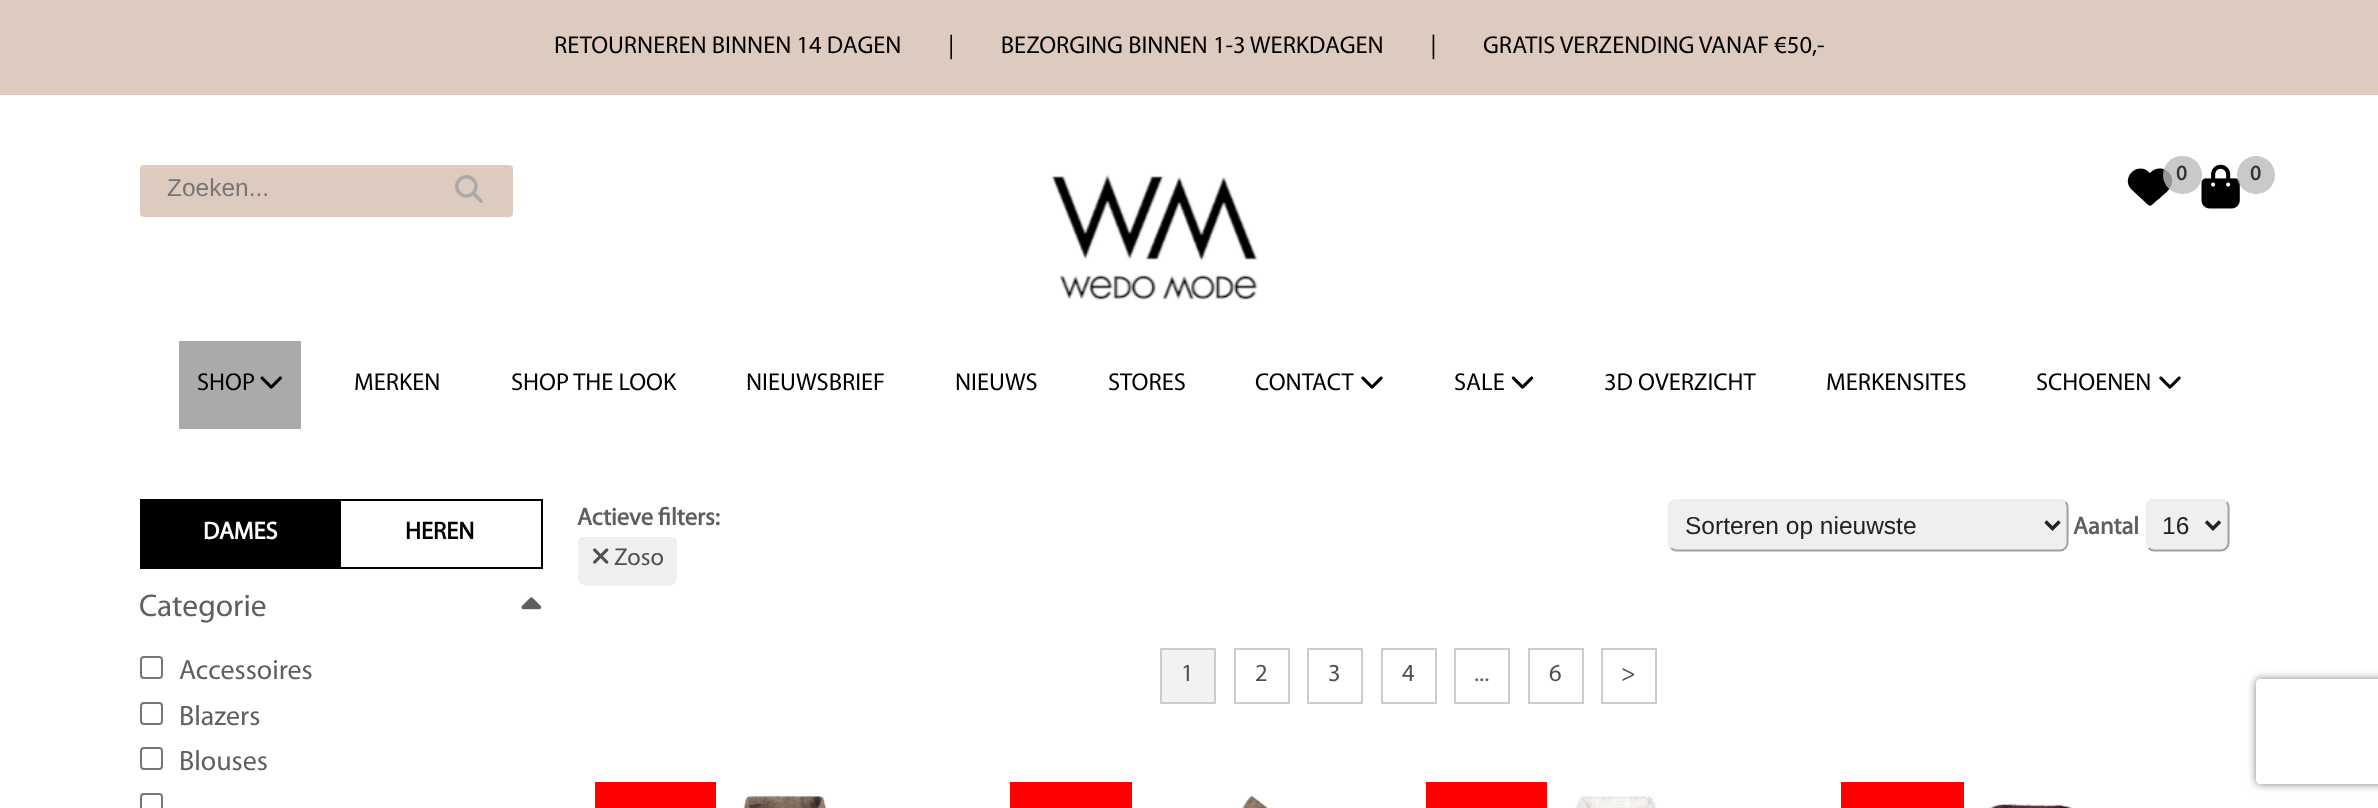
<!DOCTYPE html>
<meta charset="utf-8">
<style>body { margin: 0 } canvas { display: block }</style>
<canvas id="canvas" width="2378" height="808"></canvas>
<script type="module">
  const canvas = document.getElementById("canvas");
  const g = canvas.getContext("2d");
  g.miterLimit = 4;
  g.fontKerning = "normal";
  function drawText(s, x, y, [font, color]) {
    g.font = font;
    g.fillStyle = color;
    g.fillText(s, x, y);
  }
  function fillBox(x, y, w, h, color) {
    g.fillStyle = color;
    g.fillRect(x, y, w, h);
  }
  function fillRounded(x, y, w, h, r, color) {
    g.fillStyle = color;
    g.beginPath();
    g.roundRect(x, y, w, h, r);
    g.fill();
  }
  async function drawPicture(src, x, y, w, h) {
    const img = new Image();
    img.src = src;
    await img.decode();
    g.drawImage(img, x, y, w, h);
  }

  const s1 = ["24.5px Myriad", "#000000"];
  const s2 = ["bold 21px Myriad", "#333333"];
  const s3 = ["24.5px Liberation Sans", "#757575"];
  const s4 = ["bold 24.5px Myriad", "#FFFFFF"];
  const s5 = ["bold 24.5px Myriad", "#000000"];
  const s6 = ["31.5px Myriad", "#5F5F5F"];
  const s7 = ["28px Myriad", "#5F5F5F"];
  const s8 = ["bold 24.5px Myriad", "#5F5F5F"];
  const s9 = ["24.5px Liberation Sans", "#222222"];
  const s10 = ["24.5px Myriad", "#4F4F4F"];
  const s11 = ["24.5px Myriad", "#5F5F5F"];

  fillBox(0, 0, 2378, 808, "#FFFFFF");
  fillBox(0, 0, 2378, 95, "#DDCBBF");
  drawText("RETOURNEREN BINNEN 14 DAGEN         |         BEZORGING BINNEN 1-3 WERKDAGEN         |         GRATIS VERZENDING VANAF €50,-", 554, 53, s1);
  g.beginPath();
  g.moveTo(2132, 190);
  g.lineTo(2145, 202);
  g.bezierCurveTo(2150, 207, 2150, 207, 2155, 202);
  g.lineTo(2160, 198);
  g.bezierCurveTo(2164, 194, 2169, 191, 2171, 186);
  g.bezierCurveTo(2177, 173, 2160, 162, 2150, 173);
  g.bezierCurveTo(2137, 160, 2120, 179, 2132, 190);
  g.closePath();
  g.fill();
  fillRounded(2163, 156, 39, 38, 19, "rgba(187, 187, 187, 0.8)");
  drawText("0", 2176, 180, s2);
  await drawPicture("pic1.png", 2201, 164, 39, 45);
  g.fillStyle = "rgba(187, 187, 187, 0.8)";
  g.beginPath();
  g.arc(2256, 175, 19, 0, Math.PI * 2);
  g.fill();
  drawText("0", 2250, 180, s2);
  fillRounded(140, 165, 373, 52, 4, "#DDCBBF");
  drawText("Zoeken...", 167, 196, s3);
  await drawPicture("pic2.png", 455, 175, 28, 28);
  await drawPicture("pic3.png", 1051, 175, 207, 125);
  fillBox(179, 341, 122, 88, "#AAAAAA");
  drawText("SHOP", 197, 390, s1);
  await drawPicture("pic4.png", 260, 376, 22, 13);
  drawText("MERKEN", 354, 390, s1);
  drawText("SHOP THE LOOK", 511, 390, s1);
  drawText("NIEUWSBRIEF", 746, 390, s1);
  drawText("NIEUWS", 955, 390, s1);
  drawText("STORES", 1108, 390, s1);
  drawText("CONTACT", 1255, 390, s1);
  await drawPicture("pic5.png", 1361, 376, 22, 13);
  drawText("SALE", 1454, 390, s1);
  await drawPicture("pic6.png", 1511, 376, 23, 13);
  drawText("3D OVERZICHT", 1604, 390, s1);
  drawText("MERKENSITES", 1826, 390, s1);
  drawText("SCHOENEN", 2036, 390, s1);
  await drawPicture("pic5.png", 2159, 376, 22, 13);
  g.strokeStyle = "#000000";
  g.lineWidth = 2;
  g.strokeRect(141, 500, 401, 68);
  fillBox(142, 501, 199, 66, "#000000");
  drawText("DAMES", 203, 539, s4);
  drawText("HEREN", 405, 539, s5);
  drawText("Categorie", 139, 616, s6);
  await drawPicture("pic7.png", 521, 597, 21, 13);
  g.beginPath();
  g.roundRect(141, 657, 21, 21, 3);
  g.strokeStyle = "#767676";
  g.stroke();
  drawText("Accessoires", 179, 679, s7);
  g.beginPath();
  g.roundRect(141, 703, 21, 21, 3);
  g.stroke();
  drawText("Blazers", 179, 725, s7);
  g.beginPath();
  g.roundRect(141, 748, 21, 21, 3);
  g.stroke();
  drawText("Blouses", 179, 770, s7);
  g.beginPath();
  g.roundRect(141, 794, 21, 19, 3);
  g.stroke();
  drawText("Actieve filters:", 577, 525, s8);
  fillRounded(1668, 499, 401, 52, 9, "#EFEFEF");
  g.beginPath();
  g.moveTo(2065.5, 502);
  g.bezierCurveTo(2067, 503.5, 2067.5, 505.5, 2067.5, 507.5);
  g.lineTo(2067.5, 542.5);
  g.bezierCurveTo(2067.5, 544.5, 2067, 546.5, 2065.5, 548);
  g.bezierCurveTo(2064, 549.5, 2062, 550.5, 2060, 550.5);
  g.lineTo(1676.5, 550.5);
  g.bezierCurveTo(1674.5, 550.5, 1672.5, 549.5, 1671, 548);
  g.strokeStyle = "#9F9F9F";
  g.lineWidth = 1.8;
  g.stroke();
  g.save();
  g.beginPath();
  g.rect(578, 499, 1662, 87);
  g.clip();
  g.beginPath();
  g.moveTo(1671, 548);
  g.bezierCurveTo(1669.5, 546.5, 1668.5, 544.5, 1668.5, 542.5);
  g.lineTo(1668.5, 507.5);
  g.bezierCurveTo(1668.5, 505.5, 1669.5, 503.5, 1671, 502);
  g.bezierCurveTo(1672.5, 500.5, 1674.5, 499.5, 1676.5, 499.5);
  g.lineTo(2060, 499.5);
  g.bezierCurveTo(2062, 499.5, 2064, 500.5, 2065.5, 502);
  g.strokeStyle = "#EEEEEE";
  g.stroke();
  g.restore();
  g.beginPath();
  g.moveTo(2045.5, 521.5);
  g.lineTo(2052.5, 528.5);
  g.lineTo(2059.5, 521.5);
  g.strokeStyle = "#222222";
  g.lineWidth = 3.5;
  g.stroke();
  drawText("Sorteren op nieuwste", 1685, 534, s9);
  drawText("Aantal", 2073, 534, s8);
  fillRounded(2146, 499, 84, 52, 9, "#EFEFEF");
  g.beginPath();
  g.moveTo(2226.5, 502);
  g.bezierCurveTo(2228, 503.5, 2228.5, 505.5, 2228.5, 507.5);
  g.lineTo(2228.5, 542.5);
  g.bezierCurveTo(2228.5, 544.5, 2228, 546.5, 2226.5, 548);
  g.bezierCurveTo(2225, 549.5, 2223, 550.5, 2221, 550.5);
  g.lineTo(2154, 550.5);
  g.bezierCurveTo(2152, 550.5, 2150, 549.5, 2148.5, 548);
  g.strokeStyle = "#9F9F9F";
  g.lineWidth = 1.8;
  g.stroke();
  g.save();
  g.beginPath();
  g.rect(578, 499, 1662, 87);
  g.clip();
  g.beginPath();
  g.moveTo(2148.5, 548);
  g.bezierCurveTo(2147, 546.5, 2146.5, 544.5, 2146.5, 542.5);
  g.lineTo(2146.5, 507.5);
  g.bezierCurveTo(2146.5, 505.5, 2147, 503.5, 2148.5, 502);
  g.bezierCurveTo(2150, 500.5, 2152, 499.5, 2154, 499.5);
  g.lineTo(2221, 499.5);
  g.bezierCurveTo(2223, 499.5, 2225, 500.5, 2226.5, 502);
  g.strokeStyle = "#EEEEEE";
  g.stroke();
  g.restore();
  g.beginPath();
  g.moveTo(2206, 521.5);
  g.lineTo(2213, 528.5);
  g.lineTo(2220, 521.5);
  g.strokeStyle = "#222222";
  g.lineWidth = 3.5;
  g.stroke();
  drawText("16", 2162, 534, s9);
  g.save();
  g.beginPath();
  g.rect(578, 537, 1090, 49);
  g.clip();
  fillRounded(578, 534, 99, 52, 9, "#EFEFEF");
  g.restore();
  await drawPicture("pic8.png", 593, 548, 16, 16);
  drawText("Zoso", 614, 565, s10);
  g.fillStyle = "#F2F2F2";
  g.beginPath();
  g.rect(1161, 649, 54, 54);
  g.fill();
  g.strokeStyle = "#CCCCCC";
  g.lineWidth = 2;
  g.stroke();
  drawText("1", 1181, 681, s10);
  g.strokeRect(1235, 649, 54, 54);
  drawText("2", 1255, 681, s10);
  g.strokeRect(1308, 649, 54, 54);
  drawText("3", 1328, 681, s10);
  g.strokeRect(1382, 649, 54, 54);
  drawText("4", 1402, 681, s10);
  g.strokeRect(1455, 649, 54, 54);
  drawText("...", 1474, 681, s11);
  g.strokeRect(1529, 649, 54, 54);
  drawText("6", 1549, 681, s10);
  g.strokeRect(1602, 649, 54, 54);
  drawText(">", 1621, 681, s10);
  fillBox(595, 782, 121, 26, "#FF0000");
  await drawPicture("pic9.png", 743, 795, 84, 13);
  fillBox(1010, 782, 122, 26, "#FF0000");
  await drawPicture("pic10.png", 1242, 795, 26, 13);
  fillBox(1426, 782, 121, 26, "#FF0000");
  await drawPicture("pic11.png", 1575, 796, 82, 12);
  fillBox(1841, 782, 123, 26, "#FF0000");
  await drawPicture("pic12.png", 1987, 803, 85, 5);
  g.save();
  g.beginPath();
  g.moveTo(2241, 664);
  g.lineTo(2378, 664);
  g.lineTo(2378, 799);
  g.lineTo(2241, 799);
  g.closePath();
  g.moveTo(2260, 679);
  g.lineTo(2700, 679);
  g.bezierCurveTo(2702, 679, 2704, 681, 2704, 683);
  g.lineTo(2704, 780);
  g.bezierCurveTo(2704, 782, 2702, 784, 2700, 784);
  g.lineTo(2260, 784);
  g.bezierCurveTo(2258, 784, 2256, 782, 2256, 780);
  g.lineTo(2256, 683);
  g.bezierCurveTo(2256, 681, 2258, 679, 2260, 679);
  g.closePath();
  g.clip("evenodd");
  g.fillStyle = "#808080";
  g.filter = "blur(4.5px)";
  g.beginPath();
  g.roundRect(2256, 679, 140, 105, 4);
  g.fill();
  g.filter = "none";
  g.restore();
</script>
